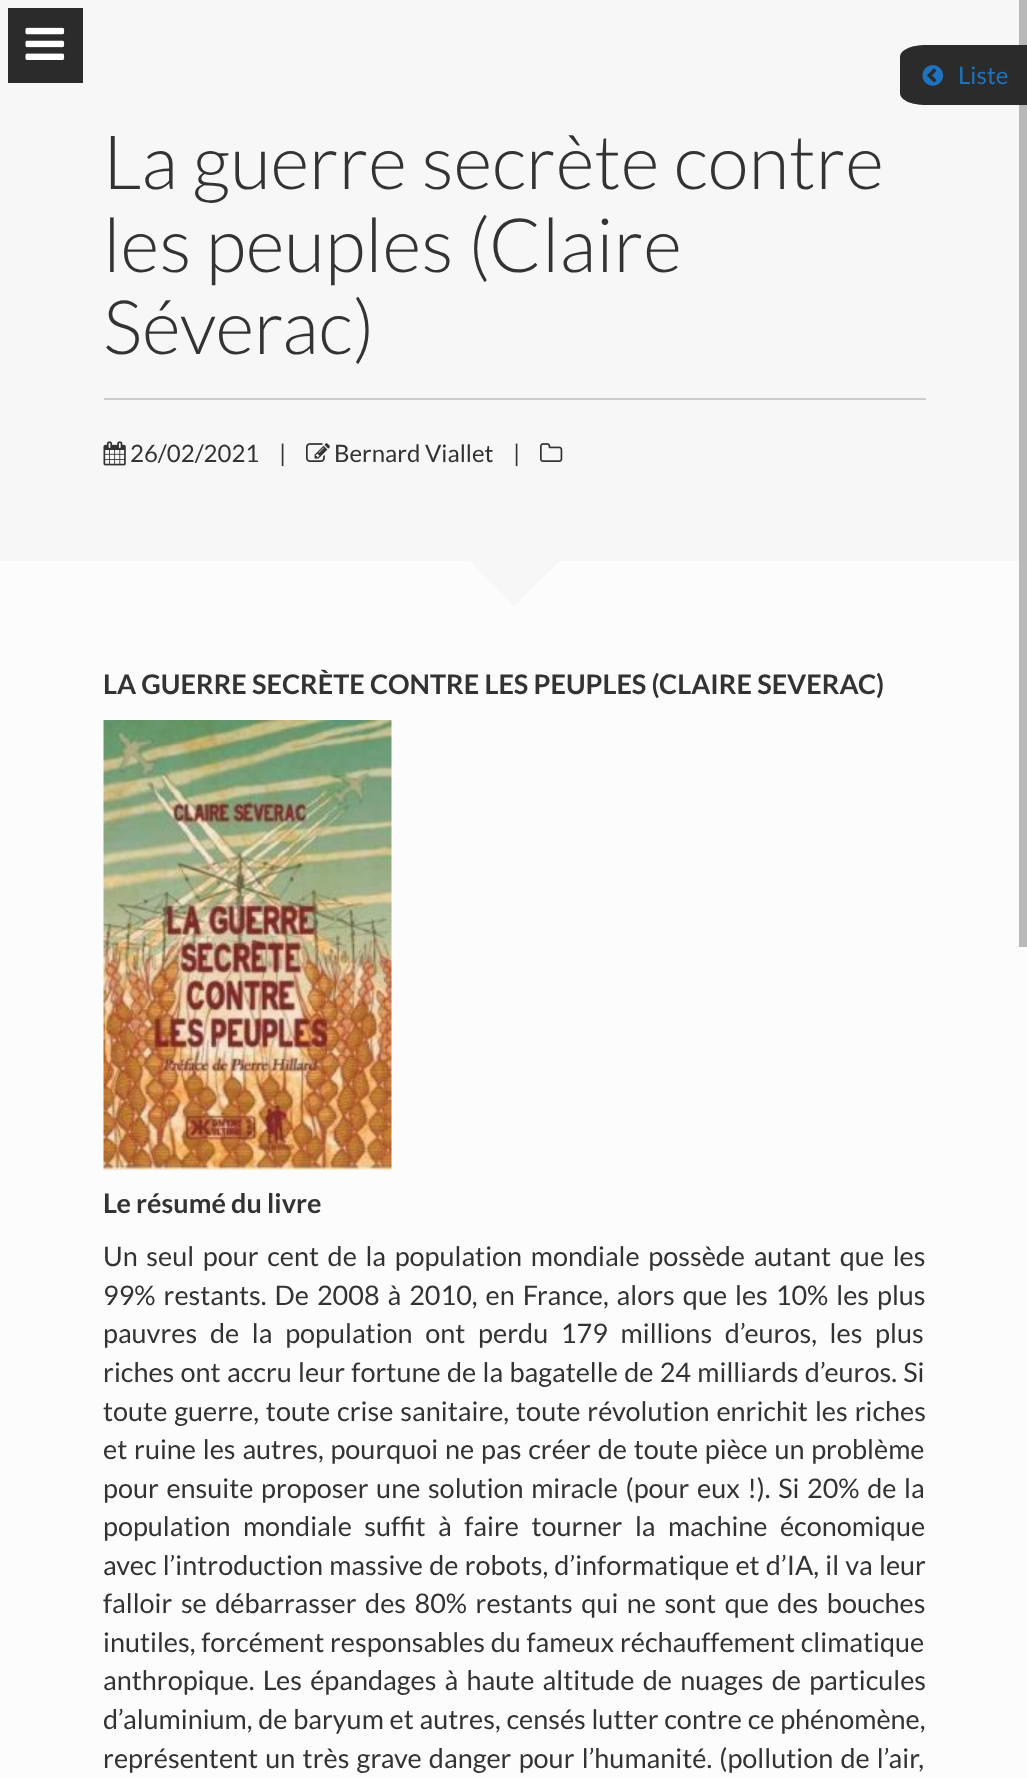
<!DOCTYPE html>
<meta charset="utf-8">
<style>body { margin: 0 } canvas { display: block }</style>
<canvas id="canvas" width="1027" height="1778"></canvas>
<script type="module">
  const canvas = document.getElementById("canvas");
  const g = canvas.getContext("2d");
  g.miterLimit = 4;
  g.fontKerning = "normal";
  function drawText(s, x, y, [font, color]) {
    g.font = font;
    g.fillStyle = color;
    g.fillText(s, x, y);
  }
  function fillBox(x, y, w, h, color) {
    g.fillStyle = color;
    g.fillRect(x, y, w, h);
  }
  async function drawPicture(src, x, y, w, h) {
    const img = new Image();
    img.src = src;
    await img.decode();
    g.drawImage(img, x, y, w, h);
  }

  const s1 = ["24px Lato", "#1E73BE"];
  const s2 = ["300 75px Lato", "#333333"];
  const s3 = ["24px Lato", "#333333"];
  const s4 = ["bold 27px Lato", "#333333"];
  const s5 = ["27px Lato", "#333333"];

  fillBox(0, 0, 1027, 1778, "#FCFCFC");
  fillBox(0, 0, 1019, 561, "#F7F7F7");
  fillBox(8, 8, 75, 75, "#2B2B2B");
  await drawPicture("pic1.png", 25, 27, 40, 33);
  fillBox(1019, 0, 8, 561, "#B8B8B8");
  g.fillStyle = "#2B2B2B";
  g.beginPath();
  g.moveTo(926, 45);
  g.lineTo(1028, 45);
  g.lineTo(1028, 105);
  g.lineTo(926, 105);
  g.bezierCurveTo(911, 105, 900, 100, 900, 93);
  g.lineTo(900, 57);
  g.bezierCurveTo(900, 50, 911, 45, 926, 45);
  g.closePath();
  g.fill();
  await drawPicture("pic2.png", 922, 65, 22, 21);
  drawText("Liste", 958, 84, s1);
  fillBox(104, 398, 822, 2, "#CCCCCC");
  drawText("La guerre secrète contre", 103, 189, s2);
  drawText("les peuples (Claire", 103, 272, s2);
  drawText("Séverac)", 103, 354, s2);
  await drawPicture("pic3.png", 103, 441, 23, 25);
  drawText("26/02/2021", 130, 462, s3);
  drawText("|", 279, 462, s3);
  await drawPicture("pic4.png", 306, 443, 24, 19);
  drawText("Bernard Viallet", 334, 462, s3);
  drawText("|", 513, 462, s3);
  await drawPicture("pic5.png", 540, 443, 23, 19);
  g.fillStyle = "#F7F7F7";
  g.beginPath();
  g.moveTo(470, 561);
  g.lineTo(560, 561);
  g.lineTo(514, 606);
  g.closePath();
  g.fill();
  fillBox(1019, 561, 8, 386, "#B9B9B9");
  drawText("LA GUERRE SECRÈTE CONTRE LES PEUPLES (CLAIRE SEVERAC)", 103, 694, s4);
  await drawPicture("pic6.png", 103, 720, 289, 450);
  drawText("Le résumé du livre", 103, 1213, s4);
  g.wordSpacing = "3.4px";
  drawText("Un seul pour cent de la population mondiale possède autant que les", 103, 1266, s5);
  g.wordSpacing = "2.75px";
  drawText("99% restants. De 2008 à 2010, en France, alors que les 10% les plus", 103, 1305, s5);
  g.wordSpacing = "7.5px";
  drawText("pauvres de la population ont perdu 179 millions d’euros, les plus", 103, 1343, s5);
  g.wordSpacing = "1.1px";
  drawText("riches ont accru leur fortune de la bagatelle de 24 milliards d’euros. Si", 103, 1382, s5);
  g.wordSpacing = "1.75px";
  drawText("toute guerre, toute crise sanitaire, toute révolution enrichit les riches", 103, 1421, s5);
  g.wordSpacing = "1.6px";
  drawText("et ruine les autres, pourquoi ne pas créer de toute pièce un problème", 103, 1459, s5);
  g.wordSpacing = "2.4px";
  drawText("pour ensuite proposer une solution miracle (pour eux !). Si 20% de la", 103, 1498, s5);
  g.wordSpacing = "7.25px";
  drawText("population mondiale suffit à faire tourner la machine économique", 103, 1536, s5);
  g.wordSpacing = "1px";
  drawText("avec l’introduction massive de robots, d’informatique et d’IA, il va leur", 103, 1575, s5);
  g.wordSpacing = "3.25px";
  drawText("falloir se débarrasser des 80% restants qui ne sont que des bouches", 103, 1613, s5);
  g.wordSpacing = "0.5px";
  drawText("inutiles, forcément responsables du fameux réchauffement climatique", 103, 1652, s5);
  g.wordSpacing = "3px";
  drawText("anthropique. Les épandages à haute altitude de nuages de particules", 103, 1690, s5);
  g.wordSpacing = "0.5px";
  drawText("d’aluminium, de baryum et autres, censés lutter contre ce phénomène,", 103, 1729, s5);
  g.wordSpacing = "2px";
  drawText("représentent un très grave danger pour l’humanité. (pollution de l’air,", 103, 1768, s5);
</script>
